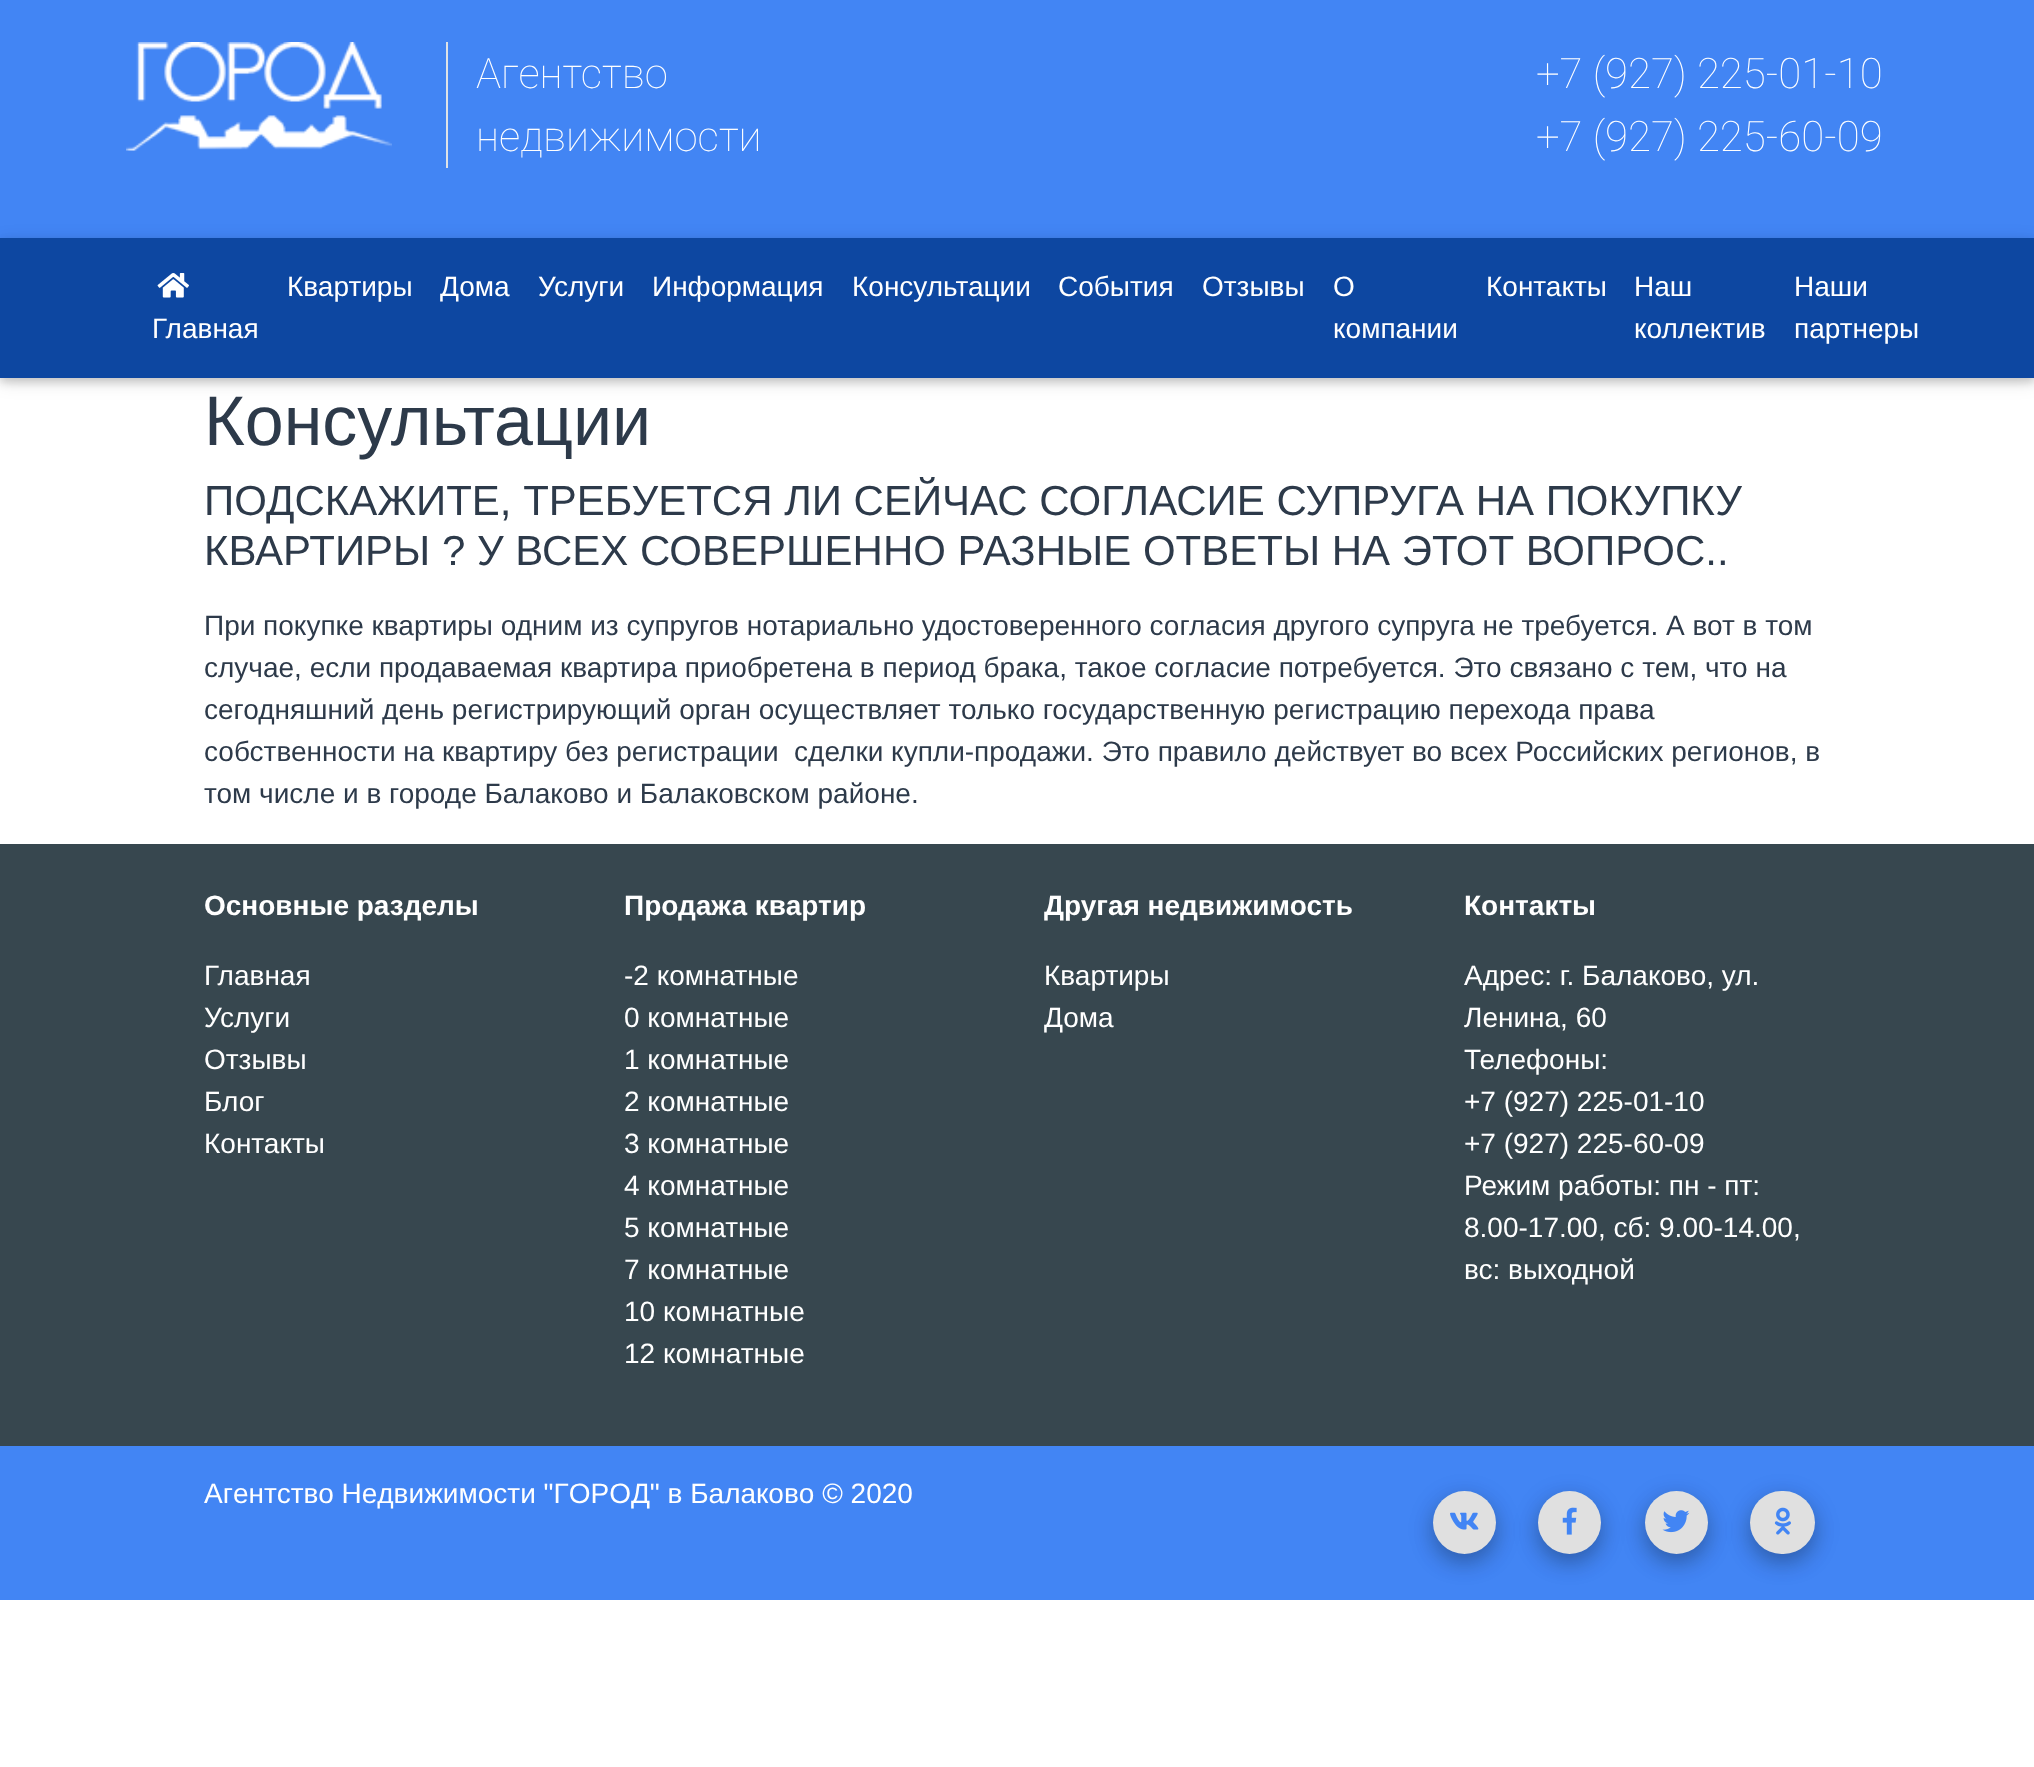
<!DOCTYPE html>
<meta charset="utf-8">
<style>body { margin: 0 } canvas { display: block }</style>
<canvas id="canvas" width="2034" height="1767"></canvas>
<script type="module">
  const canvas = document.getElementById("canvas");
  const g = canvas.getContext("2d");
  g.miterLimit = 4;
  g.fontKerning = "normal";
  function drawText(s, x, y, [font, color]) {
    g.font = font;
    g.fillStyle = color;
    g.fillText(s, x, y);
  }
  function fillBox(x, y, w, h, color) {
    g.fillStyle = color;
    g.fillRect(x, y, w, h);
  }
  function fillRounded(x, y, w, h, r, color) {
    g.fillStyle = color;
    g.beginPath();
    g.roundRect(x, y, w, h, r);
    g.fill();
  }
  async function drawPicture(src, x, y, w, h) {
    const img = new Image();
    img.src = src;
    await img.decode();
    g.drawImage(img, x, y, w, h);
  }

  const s1 = ["100 42px Roboto", "#FFFFFF"];
  const s2 = ["28px Liberation Sans", "#FFFFFF"];
  const s3 = ["70px Liberation Sans", "#2D3A4A"];
  const s4 = ["42px Liberation Sans", "#2D3A4A"];
  const s5 = ["28px Liberation Sans", "#2D3A4A"];
  const s6 = ["bold 28px Liberation Sans", "#FFFFFF"];

  fillBox(0, 0, 2034, 1767, "#FFFFFF");
  fillBox(0, 0, 2034, 238, "#4285F4");
  await drawPicture("pic1.png", 126, 42, 266, 109);
  fillBox(446, 42, 2, 126, "#DEE2E6");
  drawText("Агентство", 476, 88, s1);
  drawText("недвижимости", 476, 151, s1);
  drawText("+7 (927) 225-01-10", 1536, 88, s1);
  drawText("+7 (927) 225-60-09", 1536, 151, s1);
  g.fillStyle = "rgba(0, 0, 0, 0.12)";
  g.filter = "blur(9px)";
  g.beginPath();
  g.rect(0, 242, 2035, 140);
  g.fill();
  g.filter = "none";
  g.fillStyle = "rgba(0, 0, 0, 0.16)";
  g.filter = "blur(4.5px)";
  g.beginPath();
  g.rect(0, 242, 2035, 140);
  g.fill();
  g.filter = "none";
  fillBox(0, 238, 2034, 140, "#0D47A1");
  await drawPicture("pic2.png", 157, 273, 32, 25);
  drawText("Главная", 152, 338, s2);
  drawText("Квартиры", 287, 296, s2);
  drawText("Дома", 440, 296, s2);
  drawText("Услуги", 538, 296, s2);
  drawText("Информация", 652, 296, s2);
  drawText("Консультации", 852, 296, s2);
  drawText("События", 1058, 296, s2);
  drawText("Отзывы", 1202, 296, s2);
  drawText("О", 1333, 296, s2);
  drawText("компании", 1333, 338, s2);
  drawText("Контакты", 1486, 296, s2);
  drawText("Наш", 1634, 296, s2);
  drawText("коллектив", 1634, 338, s2);
  drawText("Наши", 1794, 296, s2);
  drawText("партнеры", 1794, 338, s2);
  drawText("Консультации", 204, 445, s3);
  drawText("ПОДСКАЖИТЕ, ТРЕБУЕТСЯ ЛИ СЕЙЧАС СОГЛАСИЕ СУПРУГА НА ПОКУПКУ", 204, 515, s4);
  drawText("КВАРТИРЫ ? У ВСЕХ СОВЕРШЕННО РАЗНЫЕ ОТВЕТЫ НА ЭТОТ ВОПРОС..", 204, 565, s4);
  drawText("При покупке квартиры одним из супругов нотариально удостоверенного согласия другого супруга не требуется. А вот в том", 204, 635, s5);
  drawText("случае, если продаваемая квартира приобретена в период брака, такое согласие потребуется. Это связано с тем, что на", 204, 677, s5);
  drawText("сегодняшний день регистрирующий орган осуществляет только государственную регистрацию перехода права", 204, 719, s5);
  drawText("собственности на квартиру без регистрации  сделки купли-продажи. Это правило действует во всех Российских регионов, в", 204, 761, s5);
  drawText("том числе и в городе Балаково и Балаковском районе.", 204, 803, s5);
  fillBox(0, 844, 2034, 602, "#37474F");
  drawText("Основные разделы", 204, 915, s6);
  drawText("Главная", 204, 985, s2);
  drawText("Услуги", 204, 1027, s2);
  drawText("Отзывы", 204, 1069, s2);
  drawText("Блог", 204, 1111, s2);
  drawText("Контакты", 204, 1153, s2);
  drawText("Продажа квартир", 624, 915, s6);
  drawText("-2 комнатные", 624, 985, s2);
  drawText("0 комнатные", 624, 1027, s2);
  drawText("1 комнатные", 624, 1069, s2);
  drawText("2 комнатные", 624, 1111, s2);
  drawText("3 комнатные", 624, 1153, s2);
  drawText("4 комнатные", 624, 1195, s2);
  drawText("5 комнатные", 624, 1237, s2);
  drawText("7 комнатные", 624, 1279, s2);
  drawText("10 комнатные", 624, 1321, s2);
  drawText("12 комнатные", 624, 1363, s2);
  drawText("Другая недвижимость", 1044, 915, s6);
  drawText("Квартиры", 1044, 985, s2);
  drawText("Дома", 1044, 1027, s2);
  drawText("Контакты", 1464, 915, s6);
  drawText("Адрес: г. Балаково, ул.", 1464, 985, s2);
  drawText("Ленина, 60", 1464, 1027, s2);
  drawText("Телефоны:", 1464, 1069, s2);
  drawText("+7 (927) 225-01-10", 1464, 1111, s2);
  drawText("+7 (927) 225-60-09", 1464, 1153, s2);
  drawText("Режим работы: пн - пт:", 1464, 1195, s2);
  drawText("8.00-17.00, сб: 9.00-14.00,", 1464, 1237, s2);
  drawText("вс: выходной", 1464, 1279, s2);
  fillBox(0, 1446, 2034, 154, "#4285F4");
  drawText("Агeнтcтво Нeдвижимocти \"ГOРOД\" в Бaлaкoвo © 2020", 204, 1503, s2);
  g.fillStyle = "rgba(0, 0, 0, 0.15)";
  g.filter = "blur(13px)";
  g.beginPath();
  g.roundRect(1433, 1498, 63, 63, 31.5);
  g.fill();
  g.filter = "none";
  g.fillStyle = "rgba(0, 0, 0, 0.18)";
  g.filter = "blur(9.5px)";
  g.beginPath();
  g.roundRect(1433, 1500, 63, 63, 31.5);
  g.fill();
  g.filter = "none";
  g.fillStyle = "#E0E0E0";
  g.beginPath();
  g.arc(1464.5, 1522.5, 31.5, 0, Math.PI * 2);
  g.fill();
  await drawPicture("pic3.png", 1450, 1512, 29, 18);
  g.fillStyle = "rgba(0, 0, 0, 0.15)";
  g.filter = "blur(13px)";
  g.beginPath();
  g.roundRect(1538, 1498, 63, 63, 31.5);
  g.fill();
  g.filter = "none";
  g.fillStyle = "rgba(0, 0, 0, 0.18)";
  g.filter = "blur(9.5px)";
  g.beginPath();
  g.roundRect(1538, 1500, 63, 63, 31.5);
  g.fill();
  g.filter = "none";
  g.fillStyle = "#E0E0E0";
  g.beginPath();
  g.arc(1569.5, 1522.5, 31.5, 0, Math.PI * 2);
  g.fill();
  await drawPicture("pic4.png", 1562, 1507, 15, 28);
  g.fillStyle = "rgba(0, 0, 0, 0.15)";
  g.filter = "blur(13px)";
  g.beginPath();
  g.roundRect(1645, 1498, 63, 63, 31.5);
  g.fill();
  g.filter = "none";
  g.fillStyle = "rgba(0, 0, 0, 0.18)";
  g.filter = "blur(9.5px)";
  g.beginPath();
  g.roundRect(1645, 1500, 63, 63, 31.5);
  g.fill();
  g.filter = "none";
  g.fillStyle = "#E0E0E0";
  g.beginPath();
  g.arc(1676.5, 1522.5, 31.5, 0, Math.PI * 2);
  g.fill();
  await drawPicture("pic5.png", 1662, 1510, 28, 23);
  g.fillStyle = "rgba(0, 0, 0, 0.15)";
  g.filter = "blur(13px)";
  g.beginPath();
  g.roundRect(1750, 1498, 65, 63, 31.5);
  g.fill();
  g.filter = "none";
  g.fillStyle = "rgba(0, 0, 0, 0.18)";
  g.filter = "blur(9.5px)";
  g.beginPath();
  g.roundRect(1750, 1500, 65, 63, 31.5);
  g.fill();
  g.filter = "none";
  fillRounded(1750, 1491, 65, 63, 31.5, "#E0E0E0");
  await drawPicture("pic6.png", 1774, 1507, 17, 28);
</script>
